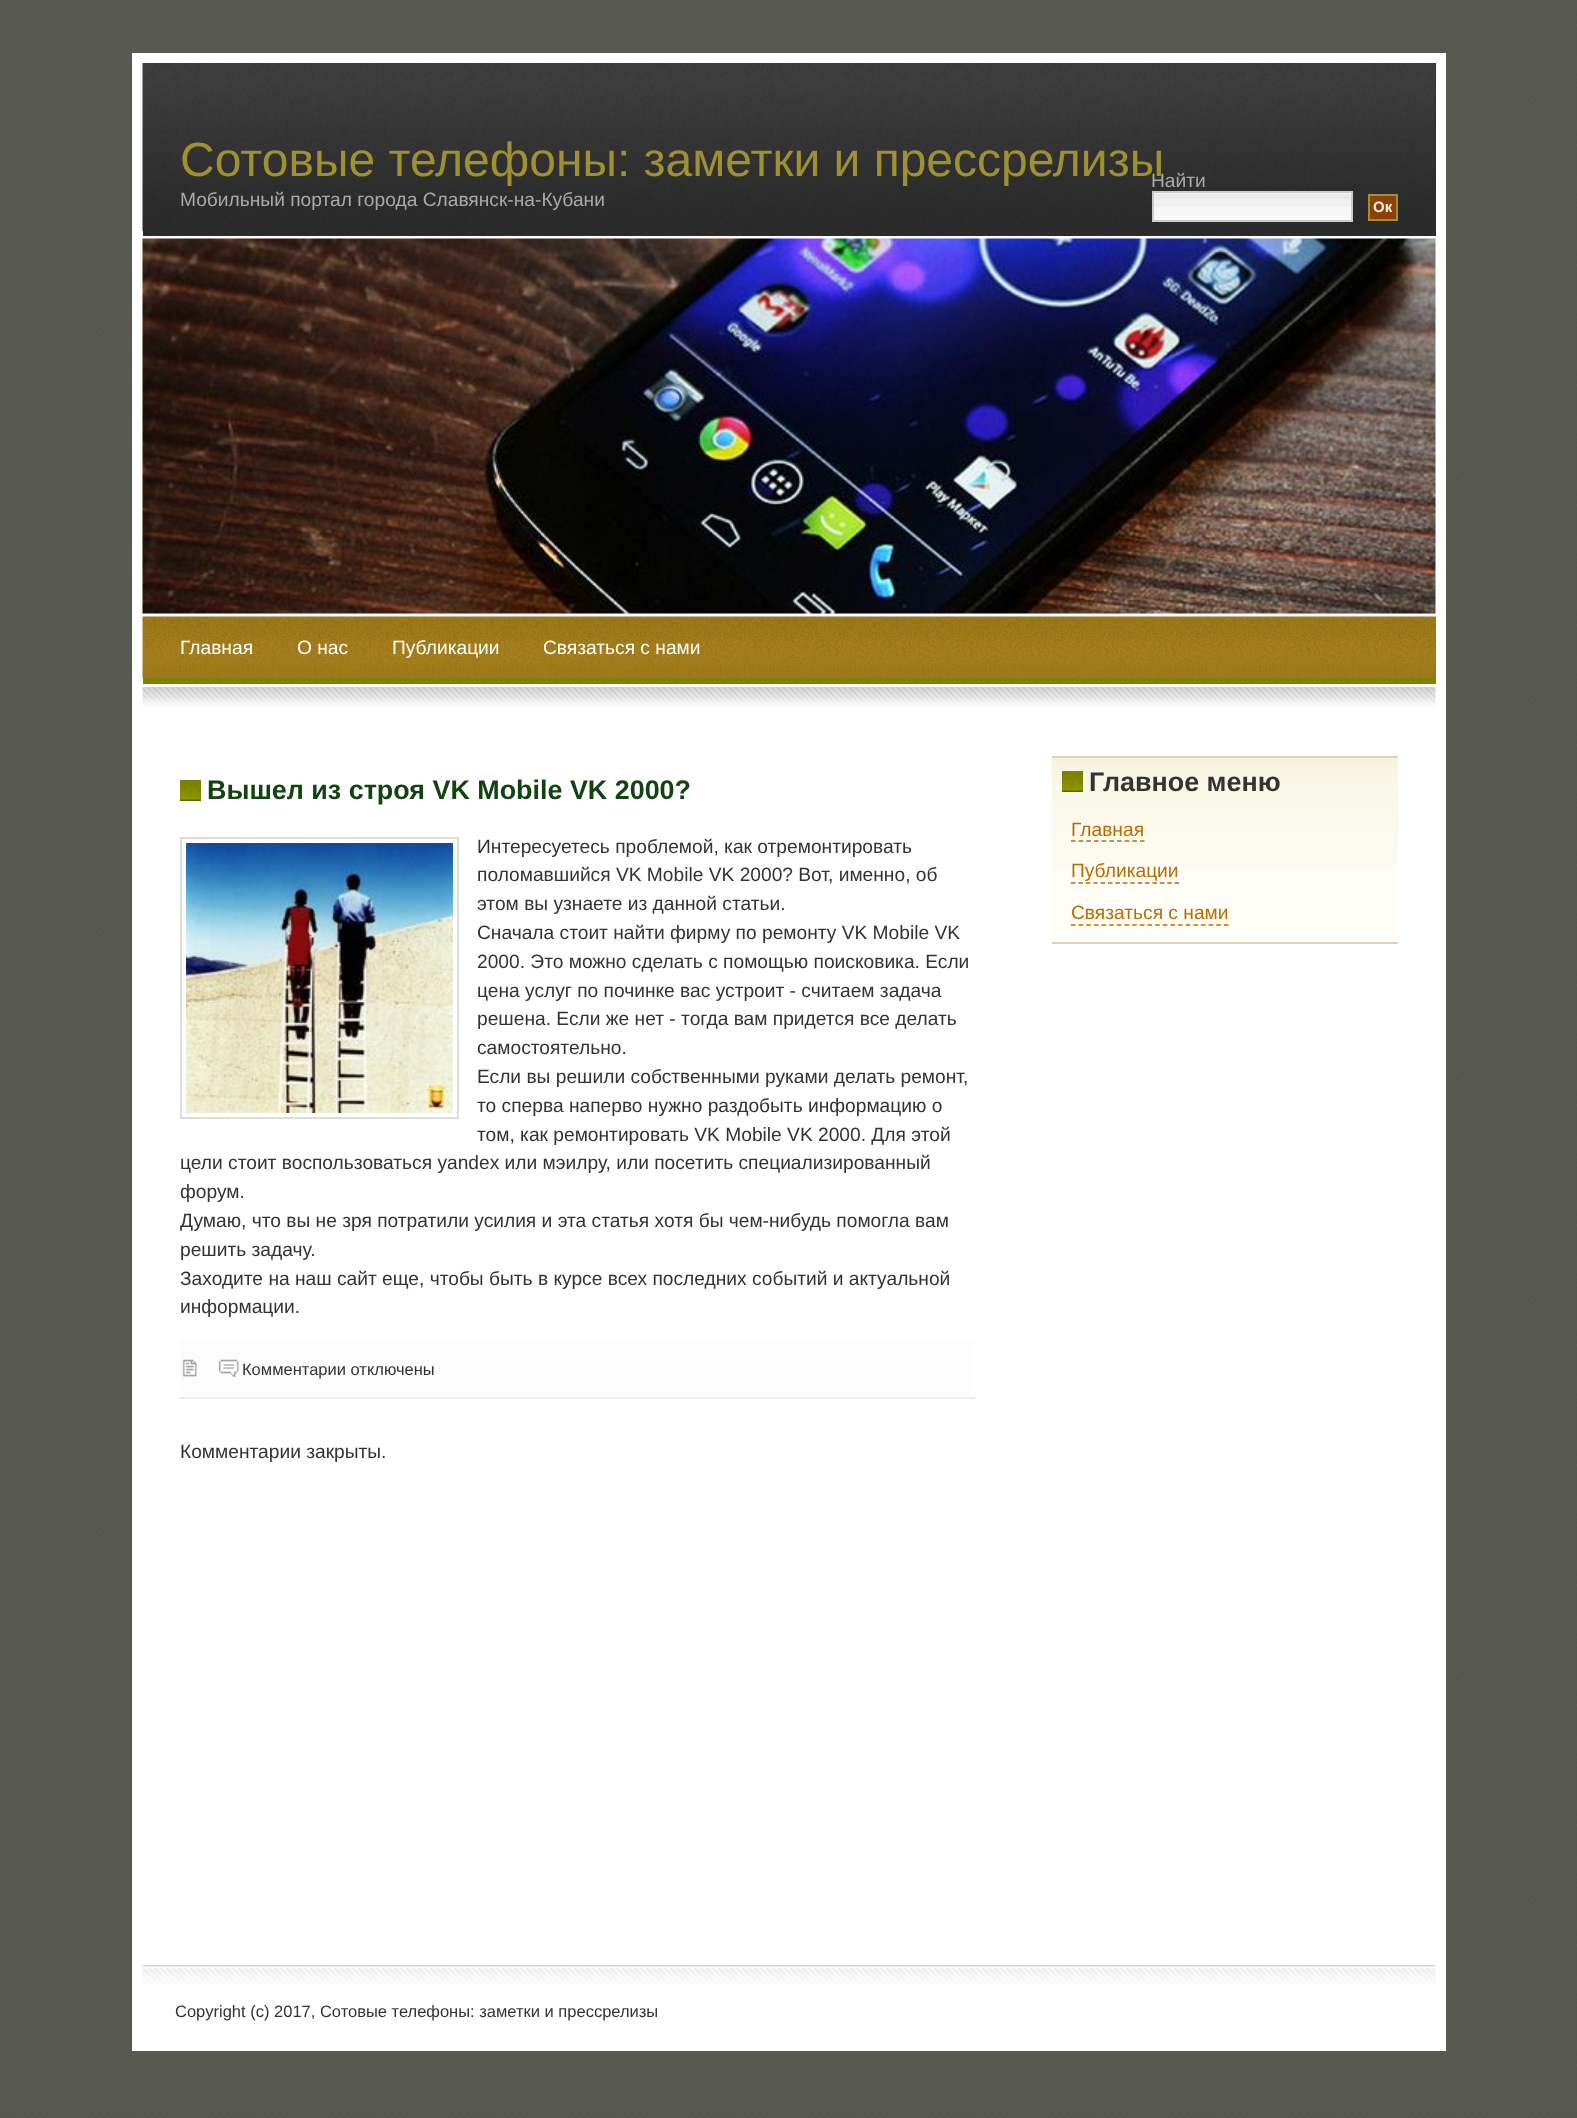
<!DOCTYPE html>
<meta charset="utf-8">
<style>body { margin: 0 } canvas { display: block }</style>
<canvas id="canvas" width="1577" height="2118"></canvas>
<script type="module">
  const canvas = document.getElementById("canvas");
  const g = canvas.getContext("2d");
  g.miterLimit = 4;
  g.fontKerning = "normal";
  function drawText(s, x, y, [font, color]) {
    g.font = font;
    g.fillStyle = color;
    g.fillText(s, x, y);
  }
  function fillBox(x, y, w, h, color) {
    g.fillStyle = color;
    g.fillRect(x, y, w, h);
  }
  async function drawPicture(src, x, y, w, h) {
    const img = new Image();
    img.src = src;
    await img.decode();
    g.drawImage(img, x, y, w, h);
  }

  const s1 = ["48px Liberation Sans", "#9F9030"];
  const s2 = ["19.2px Liberation Sans", "#AAAAAA"];
  const s3 = ["bold 15px Liberation Sans", "#F2F3DE"];
  const s4 = ["19.2px Liberation Sans", "#FFFFFF"];
  const s5 = ["bold 26.9px Liberation Sans", "#114411"];
  const s6 = ["19.2px Liberation Sans", "#333333"];
  const s7 = ["16.5px Liberation Sans", "#333333"];
  const s8 = ["bold 26.9px Liberation Sans", "#333333"];
  const s9 = ["19.2px Liberation Sans", "#B96D00"];

  fillBox(0, 0, 1577, 2118, "#FFFFFF");
  await drawPicture("pic1.png", 0, 0, 1577, 2118);
  fillBox(132, 53, 1314, 1998, "#FFFFFF");
  fillBox(143, 63, 1293, 173, "#2B2B2B");
  await drawPicture("pic2.png", 142, 63, 1294, 168);
  drawText("Сотовые телефоны: заметки и прессрелизы", 180, 176, s1);
  drawText("Мобильный портал города Славянск-на-Кубани", 180, 206, s2);
  drawText("Найти", 1151, 187, s2);
  fillBox(1154, 217, 197, 3, "#F9F9F9");
  await drawPicture("pic3.png", 1154, 193, 197, 24);
  g.strokeStyle = "#CCCCCC";
  g.lineWidth = 2;
  g.strokeRect(1153, 192, 199, 29);
  g.fillStyle = "#8F4008";
  g.beginPath();
  g.rect(1369, 195, 28, 25);
  g.fill();
  g.strokeStyle = "#9F9030";
  g.stroke();
  drawText("Ок", 1373, 212, s3);
  await drawPicture("pic4.png", 142, 238, 1294, 376);
  fillBox(143, 617, 1293, 67, "#7F8400");
  await drawPicture("pic5.png", 142, 616, 1294, 62);
  drawText("Главная", 180, 654, s4);
  drawText("О нас", 297, 654, s4);
  drawText("Публикации", 392, 654, s4);
  drawText("Связаться с нами", 543, 654, s4);
  await drawPicture("pic6.png", 142, 687, 1294, 20);
  fillBox(180, 1397, 795, 2, "#EAEAEA");
  await drawPicture("pic7.png", 180, 780, 21, 21);
  drawText("Вышел из строя VK Mobile VK 2000?", 207, 799, s5);
  g.strokeStyle = "#DCDCDC";
  g.strokeRect(181, 838, 277, 280);
  await drawPicture("pic8.png", 186, 843, 267, 270);
  drawText("Интересуетесь проблемой, как отремонтировать", 477, 853, s6);
  drawText("поломавшийся VK Mobile VK 2000? Вот, именно, об", 477, 881, s6);
  drawText("этом вы узнаете из данной статьи.", 477, 910, s6);
  drawText("Сначала стоит найти фирму по ремонту VK Mobile VK", 477, 939, s6);
  drawText("2000. Это можно сделать с помощью поисковика. Если", 477, 968, s6);
  drawText("цена услуг по починке вас устроит - считаем задача", 477, 997, s6);
  drawText("решена. Если же нет - тогда вам придется все делать", 477, 1025, s6);
  drawText("самостоятельно.", 477, 1054, s6);
  drawText("Если вы решили собственными руками делать ремонт,", 477, 1083, s6);
  drawText("то сперва наперво нужно раздобыть информацию о", 477, 1112, s6);
  drawText("том, как ремонтировать VK Mobile VK 2000. Для этой", 477, 1141, s6);
  drawText("цели стоит воспользоваться yandex или мэилру, или посетить специализированный", 180, 1169, s6);
  drawText("форум.", 180, 1198, s6);
  drawText("Думаю, что вы не зря потратили усилия и эта статья хотя бы чем-нибудь помогла вам", 180, 1227, s6);
  drawText("решить задачу.", 180, 1256, s6);
  drawText("Заходите на наш сайт еще, чтобы быть в курсе всех последних событий и актуальной", 180, 1285, s6);
  drawText("информации.", 180, 1313, s6);
  fillBox(180, 1341, 795, 56, "#FCFCFC");
  await drawPicture("pic9.png", 182, 1359, 15, 18);
  await drawPicture("pic10.png", 219, 1359, 20, 18);
  drawText("Комментарии отключены", 242, 1375, s7);
  drawText("Комментарии закрыты.", 180, 1458, s6);
  fillBox(1052, 866, 346, 76, "#FDFCF6");
  await drawPicture("pic11.png", 1051, 757, 347, 109);
  fillBox(1052, 756, 346, 2, "#E1D2BD");
  fillBox(1052, 942, 346, 2, "#E1D2BD");
  await drawPicture("pic12.png", 1062, 771, 21, 21);
  drawText("Главное меню", 1089, 791, s8);
  drawText("Главная", 1071, 836, s9);
  g.beginPath();
  g.moveTo(1071, 841);
  g.lineTo(1144.5, 841);
  g.strokeStyle = "#B96D00";
  g.lineWidth = 1.5;
  g.setLineDash([4.5, 3.17]);
  g.stroke();
  drawText("Публикации", 1071, 877, s9);
  g.beginPath();
  g.moveTo(1071, 883);
  g.lineTo(1179, 883);
  g.setLineDash([4.5, 2.9]);
  g.stroke();
  drawText("Связаться с нами", 1071, 919, s9);
  g.beginPath();
  g.moveTo(1071, 925);
  g.lineTo(1228.5, 925);
  g.setLineDash([4.5, 3.15]);
  g.stroke();
  await drawPicture("pic13.png", 142, 1965, 1294, 19);
  drawText("Copyright (c) 2017, Сотовые телефоны: заметки и прессрелизы", 175, 2017, s7);
</script>
